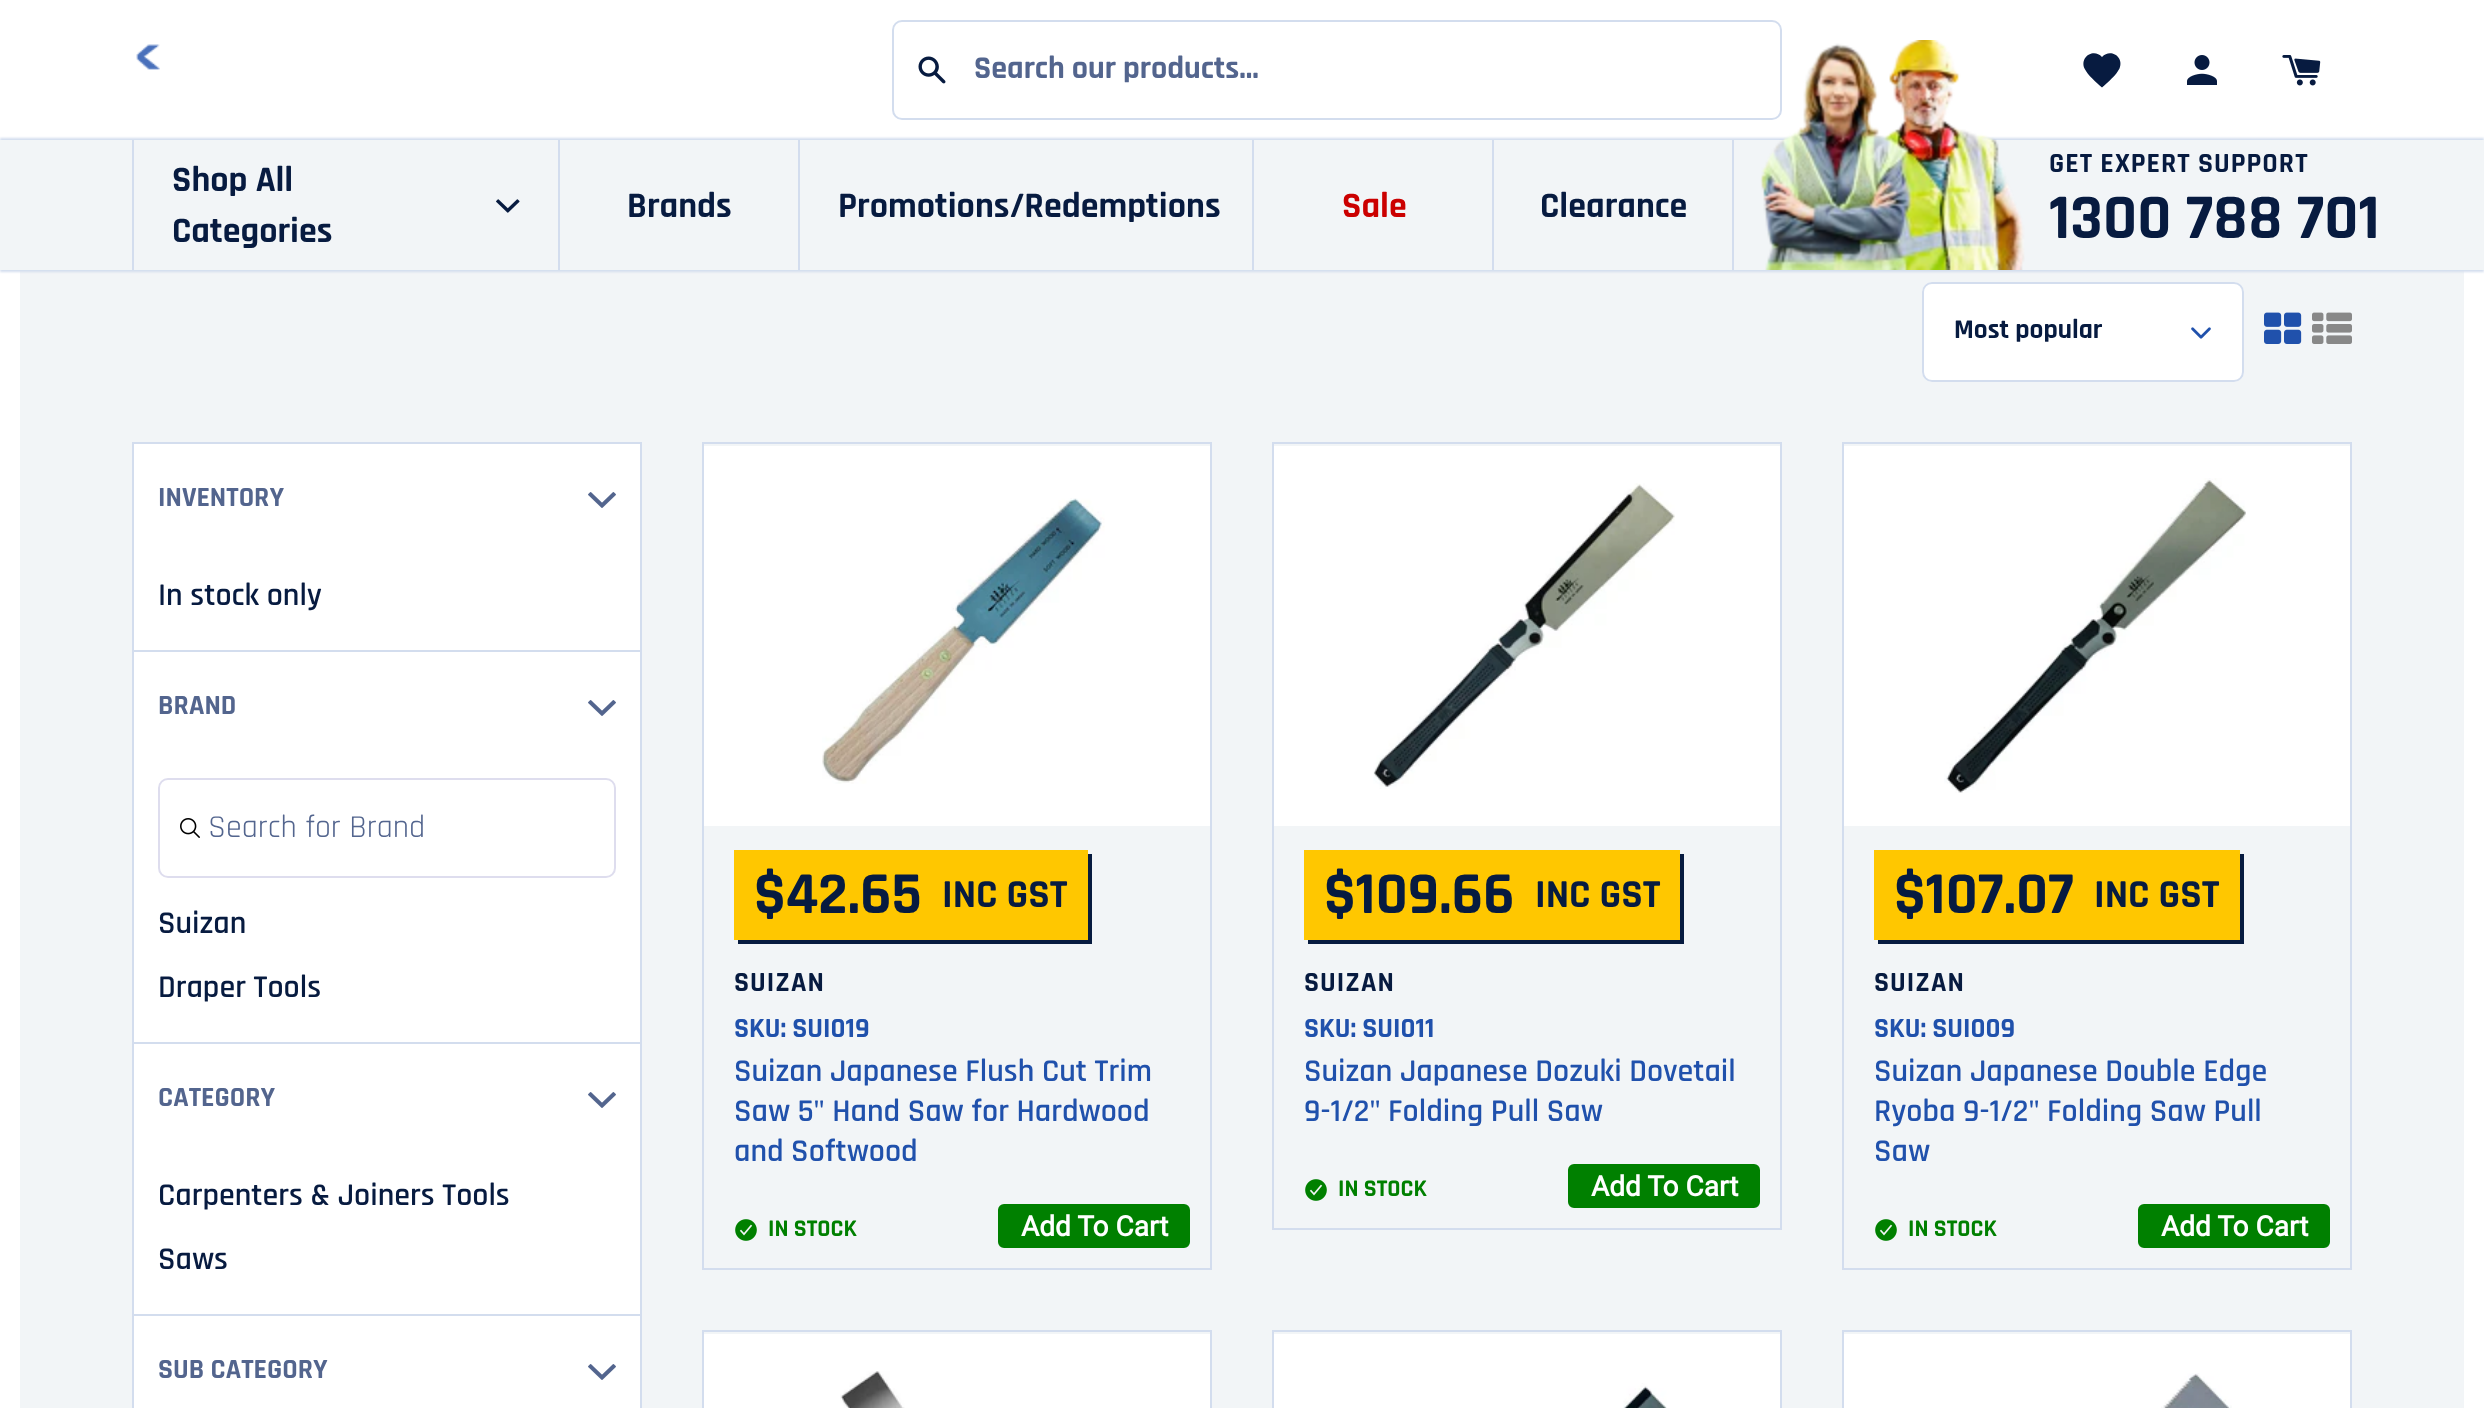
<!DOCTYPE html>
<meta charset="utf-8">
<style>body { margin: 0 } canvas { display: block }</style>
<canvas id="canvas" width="2484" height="1408"></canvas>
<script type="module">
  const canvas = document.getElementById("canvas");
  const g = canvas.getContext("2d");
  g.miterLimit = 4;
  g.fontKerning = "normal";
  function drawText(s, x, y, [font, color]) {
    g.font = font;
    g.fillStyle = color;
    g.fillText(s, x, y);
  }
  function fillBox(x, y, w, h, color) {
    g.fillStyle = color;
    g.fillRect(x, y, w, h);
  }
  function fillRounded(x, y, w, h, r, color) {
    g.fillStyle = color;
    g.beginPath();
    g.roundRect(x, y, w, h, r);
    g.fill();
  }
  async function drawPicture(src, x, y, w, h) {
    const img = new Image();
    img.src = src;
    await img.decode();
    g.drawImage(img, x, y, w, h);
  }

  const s1 = ["bold 32px Rajdhani", "#53658E"];
  const s2 = ["bold 36px Rajdhani", "#071B40"];
  const s3 = ["bold 36px Rajdhani", "#CB0000"];
  const s4 = ["bold 28px Rajdhani", "#071B40"];
  const s5 = ["bold 64px Rajdhani", "#071B40"];
  const s6 = ["bold 27.25px Rajdhani", "#071B40"];
  const s7 = ["bold 28px Rajdhani", "#53658E"];
  const s8 = ["600 32px Rajdhani", "#071B40"];
  const s9 = ["32px Rajdhani", "#53658E"];
  const s10 = ["bold 60px Rajdhani", "#071B40"];
  const s11 = ["bold 40px Rajdhani", "#071B40"];
  const s12 = ["bold 28px Rajdhani", "#2051AC"];
  const s13 = ["600 32px Rajdhani", "#2051AC"];
  const s14 = ["bold 28px Roboto", "#FFFFFF"];
  const s15 = ["bold 24px Rajdhani", "#008000"];

  fillBox(0, 0, 2484, 1408, "#FFFFFF");
  await drawPicture("pic1.png", 136, 44, 24, 26);
  g.beginPath();
  g.roundRect(893, 21, 888, 98, 9);
  g.strokeStyle = "#D3DDEE";
  g.lineWidth = 2;
  g.stroke();
  await drawPicture("pic2.png", 918, 56, 28, 28);
  drawText("Search our products...", 974, 78, s1);
  g.fillStyle = "#071B40";
  g.beginPath();
  g.moveTo(2102, 87.5);
  g.bezierCurveTo(2096, 82, 2088, 75.5, 2084.5, 68.5);
  g.bezierCurveTo(2079.5, 56.5, 2094, 48, 2102, 57);
  g.bezierCurveTo(2110, 48, 2124.5, 56.5, 2119.5, 68.5);
  g.bezierCurveTo(2116, 75.5, 2108, 82, 2102, 87.5);
  g.closePath();
  g.fill();
  await drawPicture("pic3.png", 2187, 55, 30, 30);
  await drawPicture("pic4.png", 2282, 55, 39, 31);
  fillBox(20, 270, 2444, 1138, "#F2F5F7");
  g.fillStyle = "#D3DDEE";
  g.filter = "blur(1px)";
  g.beginPath();
  g.rect(0, 138, 2484, 130);
  g.fill();
  g.filter = "none";
  g.filter = "blur(1px)";
  g.beginPath();
  g.rect(0, 142, 2484, 130);
  g.fill();
  g.filter = "none";
  fillBox(0, 140, 2484, 130, "#F2F5F7");
  fillBox(558, 140, 2, 130, "#D3DDEE");
  fillBox(132, 140, 2, 130, "#D3DDEE");
  drawText("Shop All", 172, 191, s2);
  await drawPicture("pic5.png", 496, 199, 24, 14);
  drawText("Categories", 172, 242, s2);
  fillBox(798, 140, 2, 130, "#D3DDEE");
  drawText("Brands", 627, 217, s2);
  fillBox(1252, 140, 2, 130, "#D3DDEE");
  drawText("Promotions/Redemptions", 838, 217, s2);
  fillBox(1492, 140, 2, 130, "#D3DDEE");
  drawText("Sale", 1342, 217, s3);
  fillBox(1732, 140, 2, 130, "#D3DDEE");
  drawText("Clearance", 1540, 217, s2);
  await drawPicture("pic6.png", 1760, 40, 265, 230);
  g.letterSpacing = "1px";
  drawText("GET EXPERT SUPPORT", 2049, 172, s4);
  g.letterSpacing = "0px";
  drawText("1300 788 701", 2049, 238, s5);
  fillRounded(1922, 282, 322, 100, 10, "#FFFFFF");
  await drawPicture("pic7.png", 2191, 327, 20, 12);
  g.beginPath();
  g.roundRect(1923, 283, 320, 98, 9);
  g.stroke();
  drawText("Most popular", 1954, 338, s6);
  await drawPicture("pic8.png", 2264, 312, 38, 32);
  await drawPicture("pic9.png", 2312, 312, 40, 32);
  fillBox(134, 444, 506, 206, "#FFFFFF");
  fillBox(132, 442, 510, 2, "#D3DDEE");
  fillBox(640, 442, 2, 208, "#D3DDEE");
  fillBox(132, 442, 2, 208, "#D3DDEE");
  drawText("INVENTORY", 158, 506, s7);
  await drawPicture("pic10.png", 588, 492, 28, 16);
  drawText("In stock only", 158, 605, s8);
  fillBox(134, 652, 506, 390, "#FFFFFF");
  fillBox(132, 650, 510, 2, "#D3DDEE");
  fillBox(640, 650, 2, 392, "#D3DDEE");
  fillBox(132, 650, 2, 392, "#D3DDEE");
  drawText("BRAND", 158, 714, s7);
  await drawPicture("pic10.png", 588, 700, 28, 16);
  g.beginPath();
  g.roundRect(159, 779, 456, 98, 9);
  g.strokeStyle = "#DEDDEE";
  g.stroke();
  await drawPicture("pic11.png", 180, 818, 20, 20);
  drawText("Search for Brand", 208, 837, s9);
  drawText("Suizan", 158, 933, s8);
  drawText("Draper Tools", 158, 997, s8);
  fillBox(134, 1044, 506, 270, "#FFFFFF");
  fillBox(132, 1042, 510, 2, "#D3DDEE");
  fillBox(640, 1042, 2, 272, "#D3DDEE");
  fillBox(132, 1042, 2, 272, "#D3DDEE");
  drawText("CATEGORY", 158, 1106, s7);
  await drawPicture("pic10.png", 588, 1092, 28, 16);
  drawText("Carpenters & Joiners Tools", 158, 1205, s8);
  drawText("Saws", 158, 1269, s8);
  fillBox(134, 1316, 506, 92, "#FFFFFF");
  fillBox(132, 1314, 510, 2, "#D3DDEE");
  fillBox(640, 1314, 2, 94, "#D3DDEE");
  fillBox(132, 1314, 2, 94, "#D3DDEE");
  drawText("SUB CATEGORY", 158, 1378, s7);
  await drawPicture("pic10.png", 588, 1364, 28, 16);
  g.strokeStyle = "#D3DDEE";
  g.strokeRect(703, 443, 508, 826);
  fillBox(704, 446, 506, 380, "#FFFFFF");
  await drawPicture("pic12.png", 822, 498, 283, 286);
  g.fillStyle = "#071B40";
  g.beginPath();
  g.moveTo(738, 940);
  g.lineTo(738, 944);
  g.lineTo(1092, 944);
  g.lineTo(1092, 854);
  g.lineTo(1088, 854);
  g.lineTo(1088, 940);
  g.closePath();
  g.fill();
  fillBox(734, 850, 354, 90, "#FFC700");
  drawText("$42.65", 754, 913, s10);
  drawText("INC GST", 942, 907, s11);
  g.letterSpacing = "1px";
  drawText("SUIZAN", 734, 991, s4);
  g.letterSpacing = "0px";
  drawText("SKU: SUI019", 734, 1037, s12);
  drawText("Suizan Japanese Flush Cut Trim", 734, 1081, s13);
  drawText("Saw 5\" Hand Saw for Hardwood", 734, 1121, s13);
  drawText("and Softwood", 734, 1161, s13);
  g.fillStyle = "#008000";
  g.beginPath();
  g.roundRect(999, 1205, 190, 42, 5);
  g.fill();
  g.strokeStyle = "#008000";
  g.stroke();
  drawText("Add To Cart", 1021, 1236, s14);
  await drawPicture("pic13.png", 735, 1219, 22, 22);
  drawText("IN STOCK", 768, 1236, s15);
  g.strokeStyle = "#D3DDEE";
  g.strokeRect(1273, 443, 508, 786);
  fillBox(1274, 446, 506, 380, "#FFFFFF");
  await drawPicture("pic14.png", 1373, 483, 302, 306);
  g.fillStyle = "#071B40";
  g.beginPath();
  g.moveTo(1308, 940);
  g.lineTo(1308, 944);
  g.lineTo(1684, 944);
  g.lineTo(1684, 854);
  g.lineTo(1680, 854);
  g.lineTo(1680, 940);
  g.closePath();
  g.fill();
  fillBox(1304, 850, 376, 90, "#FFC700");
  drawText("$109.66", 1324, 913, s10);
  drawText("INC GST", 1535, 907, s11);
  g.letterSpacing = "1px";
  drawText("SUIZAN", 1304, 991, s4);
  g.letterSpacing = "0px";
  drawText("SKU: SUI011", 1304, 1037, s12);
  drawText("Suizan Japanese Dozuki Dovetail", 1304, 1081, s13);
  drawText("9-1/2\" Folding Pull Saw", 1304, 1121, s13);
  g.fillStyle = "#008000";
  g.beginPath();
  g.roundRect(1569, 1165, 190, 42, 5);
  g.fill();
  g.strokeStyle = "#008000";
  g.stroke();
  drawText("Add To Cart", 1591, 1196, s14);
  await drawPicture("pic13.png", 1305, 1179, 22, 22);
  drawText("IN STOCK", 1338, 1196, s15);
  g.strokeStyle = "#D3DDEE";
  g.strokeRect(1843, 443, 508, 826);
  fillBox(1844, 446, 506, 380, "#FFFFFF");
  await drawPicture("pic15.png", 1944, 478, 302, 315);
  g.fillStyle = "#071B40";
  g.beginPath();
  g.moveTo(1878, 940);
  g.lineTo(1878, 944);
  g.lineTo(2244, 944);
  g.lineTo(2244, 854);
  g.lineTo(2240, 854);
  g.lineTo(2240, 940);
  g.closePath();
  g.fill();
  fillBox(1874, 850, 366, 90, "#FFC700");
  drawText("$107.07", 1894, 913, s10);
  drawText("INC GST", 2094, 907, s11);
  g.letterSpacing = "1px";
  drawText("SUIZAN", 1874, 991, s4);
  g.letterSpacing = "0px";
  drawText("SKU: SUI009", 1874, 1037, s12);
  drawText("Suizan Japanese Double Edge", 1874, 1081, s13);
  drawText("Ryoba 9-1/2\" Folding Saw Pull", 1874, 1121, s13);
  drawText("Saw", 1874, 1161, s13);
  g.fillStyle = "#008000";
  g.beginPath();
  g.roundRect(2139, 1205, 190, 42, 5);
  g.fill();
  g.strokeStyle = "#008000";
  g.stroke();
  drawText("Add To Cart", 2161, 1236, s14);
  await drawPicture("pic13.png", 1875, 1219, 22, 22);
  drawText("IN STOCK", 1908, 1236, s15);
  g.strokeStyle = "#D3DDEE";
  g.strokeRect(703, 1331, 508, 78);
  fillBox(704, 1334, 506, 74, "#FFFFFF");
  await drawPicture("pic16.png", 840, 1371, 65, 37);
  g.strokeRect(1273, 1331, 508, 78);
  fillBox(1274, 1334, 506, 74, "#FFFFFF");
  await drawPicture("pic17.png", 1623, 1383, 44, 25);
  g.strokeRect(1843, 1331, 508, 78);
  fillBox(1844, 1334, 506, 74, "#FFFFFF");
  await drawPicture("pic18.png", 2161, 1373, 71, 35);
</script>
